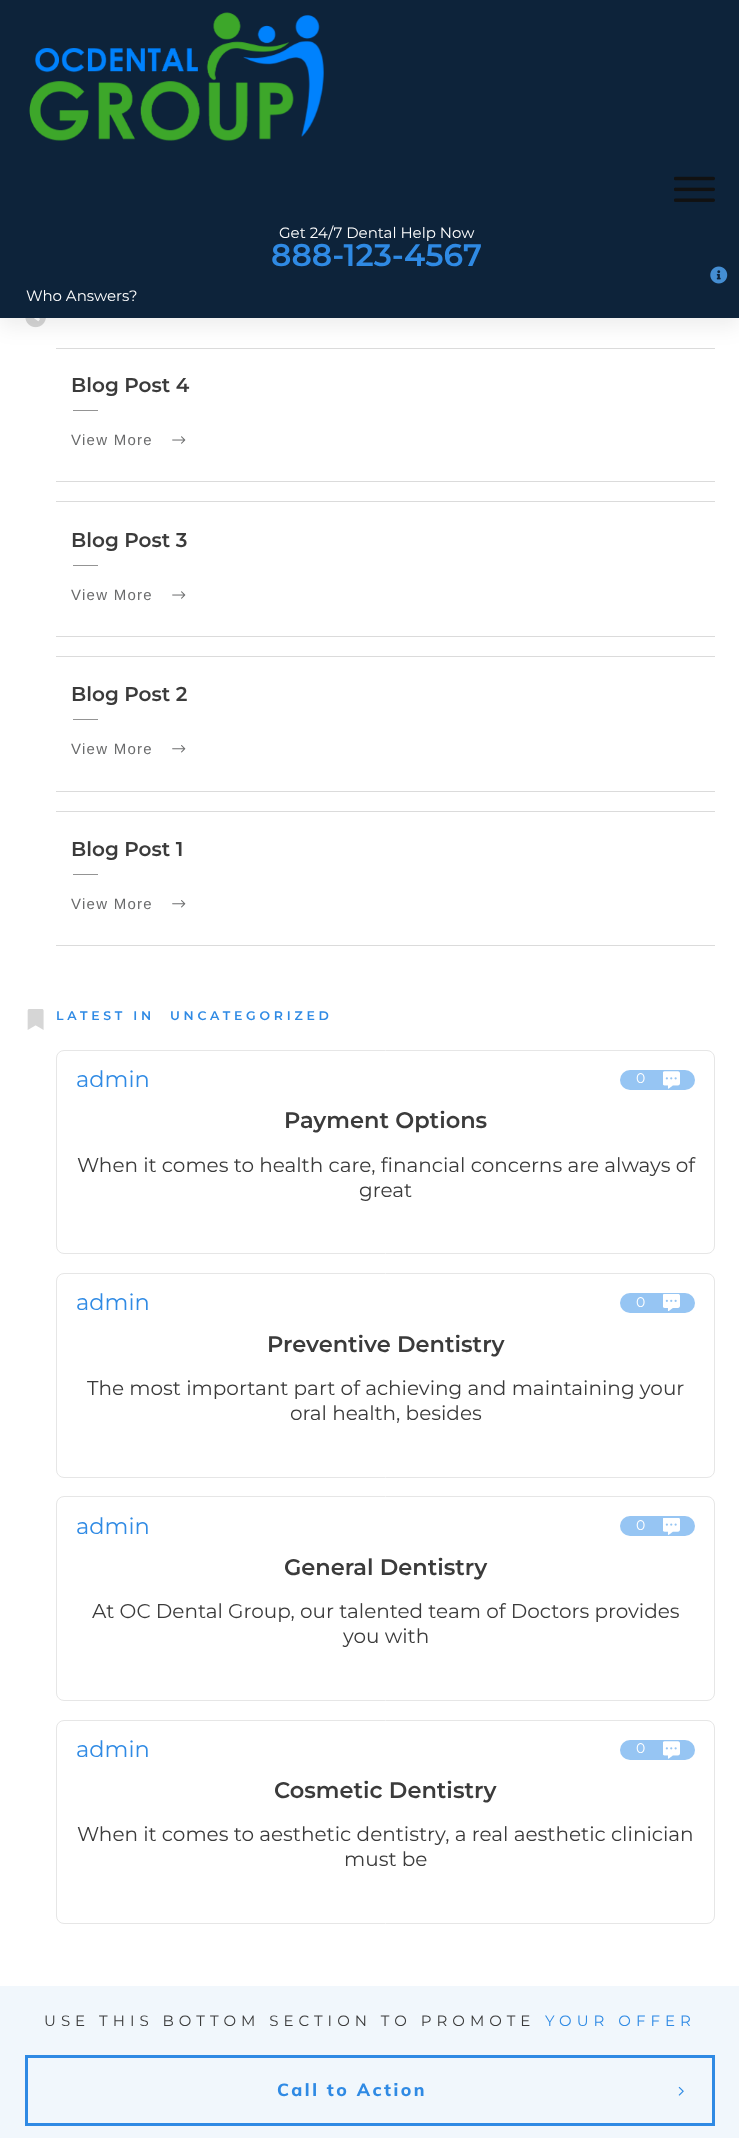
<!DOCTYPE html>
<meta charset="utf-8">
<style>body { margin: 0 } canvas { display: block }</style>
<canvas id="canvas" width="739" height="2138"></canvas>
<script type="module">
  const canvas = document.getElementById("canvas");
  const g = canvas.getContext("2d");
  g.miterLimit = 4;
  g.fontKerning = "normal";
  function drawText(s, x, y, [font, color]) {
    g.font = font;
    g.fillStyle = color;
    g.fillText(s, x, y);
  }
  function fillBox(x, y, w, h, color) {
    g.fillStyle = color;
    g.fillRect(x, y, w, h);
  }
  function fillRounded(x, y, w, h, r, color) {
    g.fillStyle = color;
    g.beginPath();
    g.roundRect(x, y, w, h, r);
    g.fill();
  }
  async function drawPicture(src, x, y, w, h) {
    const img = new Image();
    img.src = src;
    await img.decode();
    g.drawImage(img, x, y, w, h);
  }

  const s1 = ["15px Montserrat", "#FFFFFF"];
  const s2 = ["600 31.25px Montserrat", "#2F8AE4"];
  const s3 = ["600 20px Montserrat", "#3B3B3B"];
  const s4 = ["15px Liberation Sans", "#6A6B6C"];
  const s5 = ["600 12.5px Montserrat", "#2F8AE4"];
  const s6 = ["22.5px Montserrat", "#2F8AE4"];
  const s7 = ["14px Montserrat", "#FFFFFF"];
  const s8 = ["600 22.5px Montserrat", "#3B3B3B"];
  const s9 = ["20px Montserrat", "#3B3B3B"];
  const s10 = ["15px Montserrat", "#3B3B3B"];
  const s11 = ["15px Montserrat", "#2F8AE4"];
  const s12 = ["800 17.5px Muli", "#2F8AE4"];

  fillBox(0, 0, 739, 2138, "#FFFFFF");
  await drawPicture("pic4.png", 25, 318, 21, 10);
  fillBox(56, 348, 659, 1, "#DBDBDB");
  g.fillStyle = "rgba(0, 0, 0, 0.08)";
  g.filter = "blur(11px)";
  g.beginPath();
  g.rect(0, 8, 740, 317);
  g.fill();
  g.filter = "none";
  fillBox(0, 0, 739, 318, "#0D233A");
  await drawPicture("pic1.png", 29, 12, 295, 129);
  await drawPicture("pic2.png", 674, 176, 41, 26);
  drawText("Get 24/7 Dental Help Now", 279, 238, s1);
  drawText("888-123-4567", 271, 266, s2);
  await drawPicture("pic3.png", 710, 266, 18, 18);
  drawText("Who Answers?", 26, 301, s1);
  fillBox(56, 481, 659, 1, "#DBDBDB");
  drawText("Blog Post 4", 71, 392, s3);
  fillBox(73, 410, 25, 1, "#949494");
  g.letterSpacing = "1.25px";
  drawText("View More", 71, 445, s4);
  await drawPicture("pic5.png", 172, 436, 14, 8);
  fillBox(56, 501, 659, 1, "#DBDBDB");
  fillBox(56, 636, 659, 1, "#DBDBDB");
  g.letterSpacing = "0px";
  drawText("Blog Post 3", 71, 547, s3);
  fillBox(73, 565, 25, 1, "#949494");
  g.letterSpacing = "1.25px";
  drawText("View More", 71, 600, s4);
  await drawPicture("pic5.png", 172, 591, 14, 8);
  fillBox(56, 656, 659, 1, "#DBDBDB");
  fillBox(56, 791, 659, 1, "#DBDBDB");
  g.letterSpacing = "0px";
  drawText("Blog Post 2", 71, 701, s3);
  fillBox(73, 719, 25, 1, "#949494");
  g.letterSpacing = "1.25px";
  drawText("View More", 71, 754, s4);
  await drawPicture("pic6.png", 172, 745, 14, 8);
  fillBox(56, 811, 659, 1, "#DBDBDB");
  fillBox(56, 945, 659, 1, "#DBDBDB");
  g.letterSpacing = "0px";
  drawText("Blog Post 1", 71, 856, s3);
  fillBox(73, 874, 25, 1, "#949494");
  g.letterSpacing = "1.25px";
  drawText("View More", 71, 909, s4);
  await drawPicture("pic6.png", 172, 900, 14, 8);
  await drawPicture("pic7.png", 27, 1009, 17, 21);
  g.letterSpacing = "3.75px";
  drawText("LATEST IN", 56, 1020, s5);
  drawText("UNCATEGORIZED", 170, 1020, s5);
  g.beginPath();
  g.roundRect(56.5, 1050.5, 658, 203, 7.5);
  g.strokeStyle = "#E6E6E6";
  g.stroke();
  g.letterSpacing = "0px";
  drawText("admin", 76, 1087, s6);
  fillRounded(620, 1070, 75, 20, 10, "#96C5F3");
  drawText("0", 636, 1083, s7);
  await drawPicture("pic8.png", 663, 1071, 17, 18);
  drawText("Payment Options", 284, 1128, s8);
  drawText("When it comes to health care, financial concerns are always of", 77, 1172, s9);
  drawText("great", 359, 1197, s9);
  g.beginPath();
  g.roundRect(56.5, 1273.5, 658, 204, 7.5);
  g.stroke();
  drawText("admin", 76, 1310, s6);
  fillRounded(620, 1293, 75, 20, 10, "#96C5F3");
  drawText("0", 636, 1307, s7);
  await drawPicture("pic9.png", 663, 1294, 17, 17);
  drawText("Preventive Dentistry", 267, 1352, s8);
  drawText("The most important part of achieving and maintaining your", 87, 1395, s9);
  drawText("oral health, besides", 290, 1420, s9);
  g.beginPath();
  g.roundRect(56.5, 1496.5, 658, 204, 7.5);
  g.stroke();
  drawText("admin", 76, 1534, s6);
  fillRounded(620, 1516, 75, 20, 10, "#96C5F3");
  drawText("0", 636, 1530, s7);
  await drawPicture("pic10.png", 663, 1518, 17, 17);
  drawText("General Dentistry", 284, 1575, s8);
  drawText("At OC Dental Group, our talented team of Doctors provides", 92, 1618, s9);
  drawText("you with", 343, 1643, s9);
  g.beginPath();
  g.roundRect(56.5, 1720.5, 658, 203, 7.5);
  g.stroke();
  drawText("admin", 76, 1757, s6);
  fillRounded(620, 1740, 75, 20, 10, "#96C5F3");
  drawText("0", 636, 1753, s7);
  await drawPicture("pic8.png", 663, 1741, 17, 18);
  drawText("Cosmetic Dentistry", 274, 1798, s8);
  drawText("When it comes to aesthetic dentistry, a real aesthetic clinician", 77, 1841, s9);
  drawText("must be", 344, 1866, s9);
  fillBox(0, 1986, 739, 152, "#F1F7FC");
  g.letterSpacing = "5px";
  drawText("USE THIS BOTTOM SECTION TO PROMOTE", 44, 2026, s10);
  drawText("YOUR OFFER", 545, 2026, s11);
  g.strokeStyle = "#2F8AE4";
  g.lineWidth = 3;
  g.strokeRect(26.5, 2056.5, 687, 68);
  g.letterSpacing = "2.5px";
  drawText("Call to Action", 277, 2096, s12);
  await drawPicture("pic11.png", 678, 2086, 6, 10);
</script>
